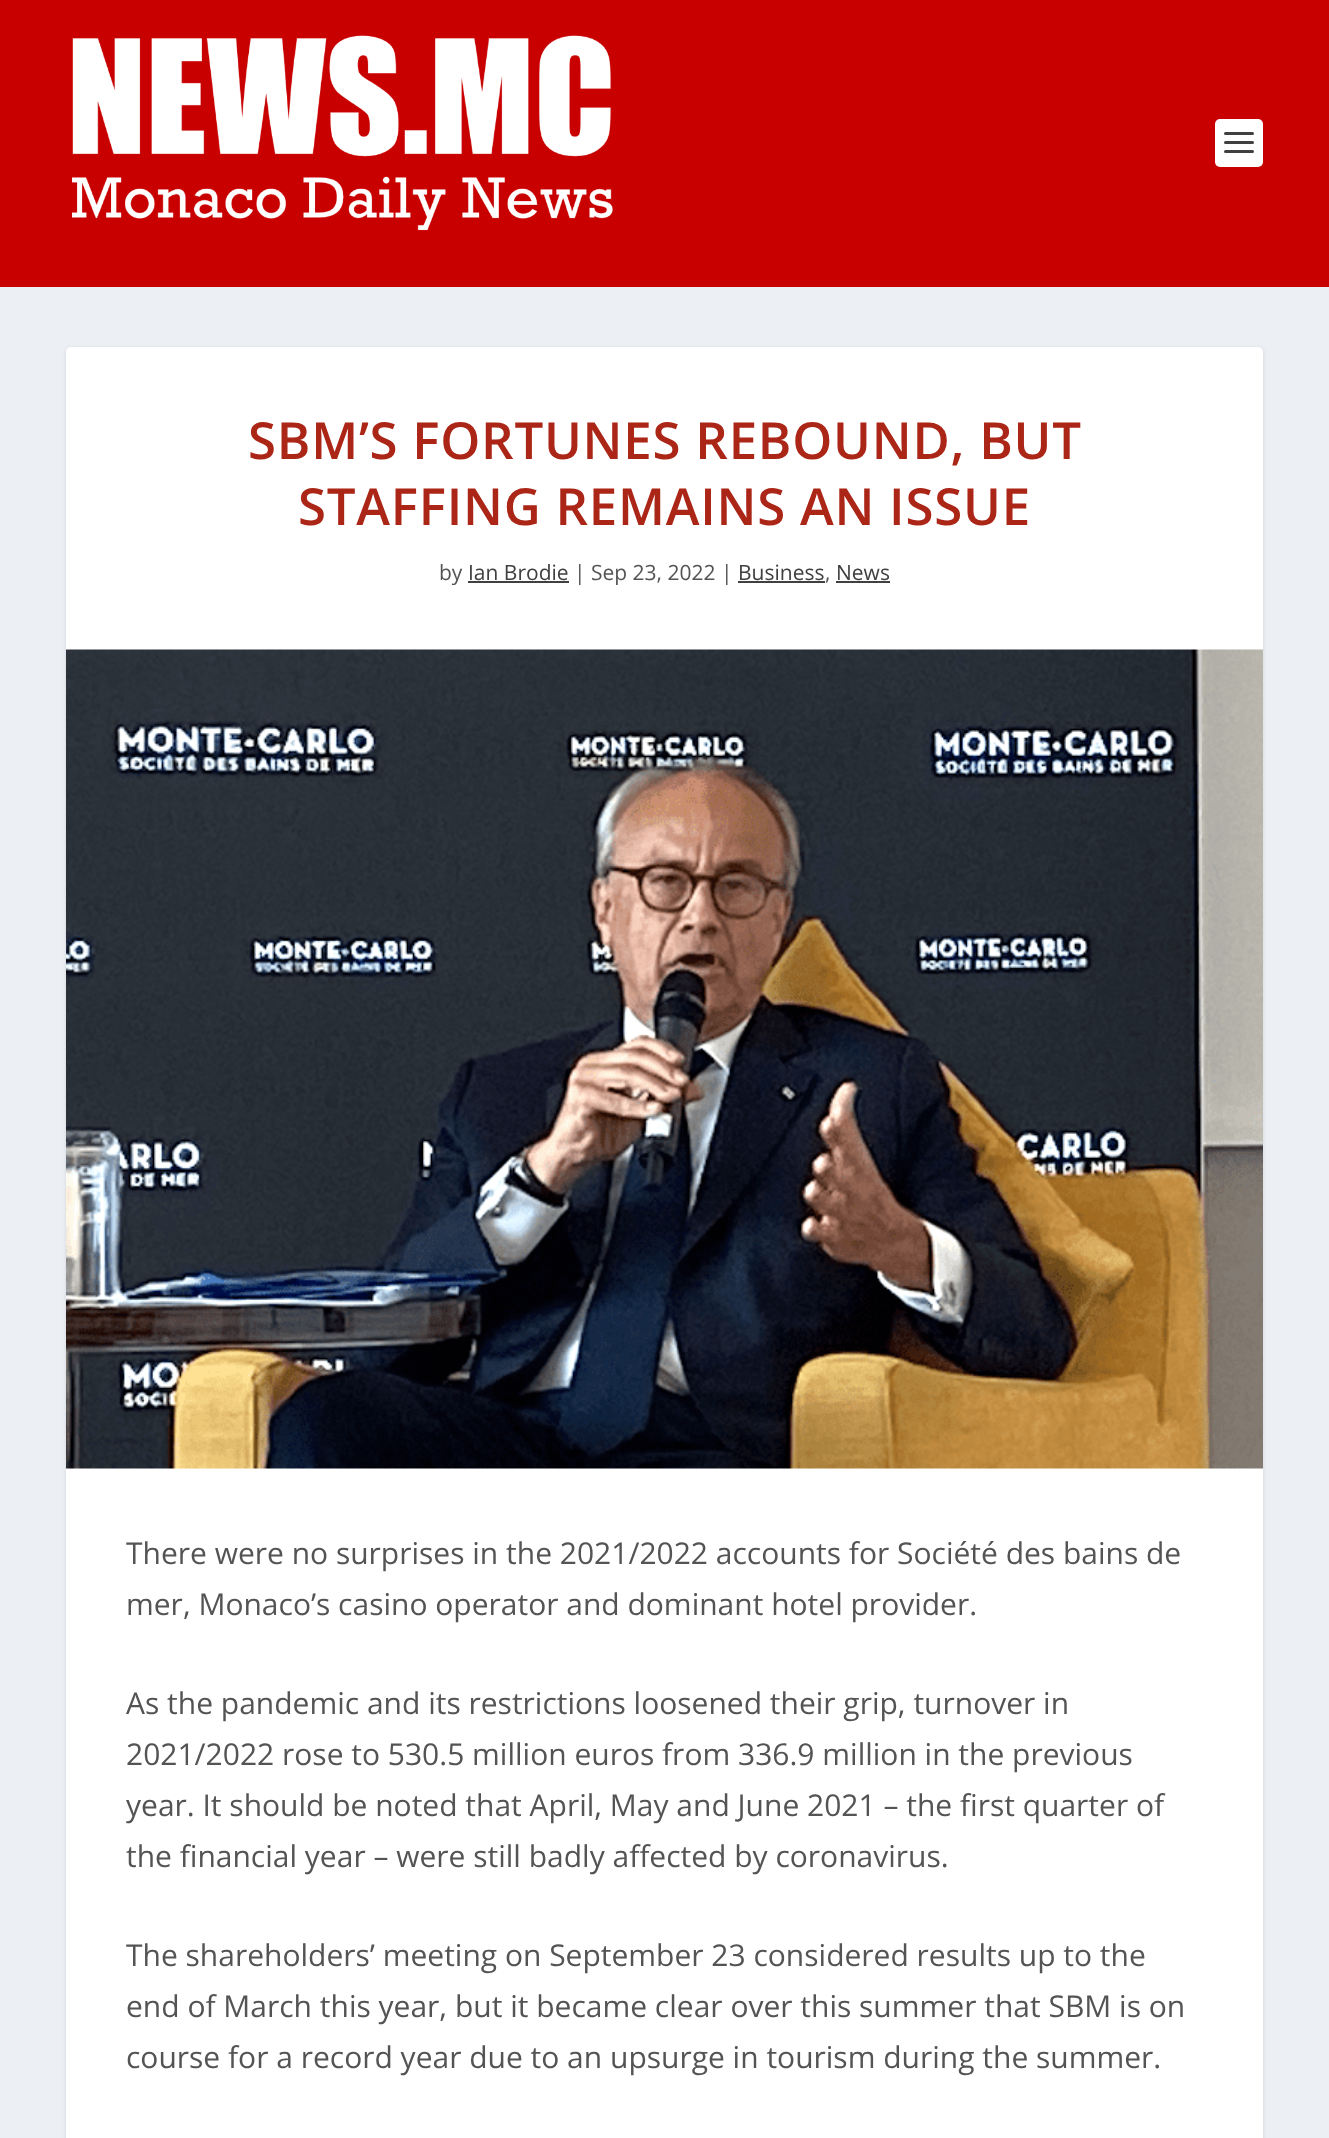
<!DOCTYPE html>
<meta charset="utf-8">
<style>body { margin: 0 } canvas { display: block }</style>
<canvas id="canvas" width="1329" height="2138"></canvas>
<script type="module">
  const canvas = document.getElementById("canvas");
  const g = canvas.getContext("2d");
  g.miterLimit = 4;
  g.fontKerning = "normal";
  function drawText(s, x, y, [font, color]) {
    g.font = font;
    g.fillStyle = color;
    g.fillText(s, x, y);
  }
  function fillBox(x, y, w, h, color) {
    g.fillStyle = color;
    g.fillRect(x, y, w, h);
  }
  function fillRounded(x, y, w, h, r, color) {
    g.fillStyle = color;
    g.beginPath();
    g.roundRect(x, y, w, h, r);
    g.fill();
  }
  async function drawPicture(src, x, y, w, h) {
    const img = new Image();
    img.src = src;
    await img.decode();
    g.drawImage(img, x, y, w, h);
  }

  const s1 = ["600 51px Open Sans", "#AB2617"];
  const s2 = ["21px Open Sans", "#545454"];
  const s3 = ["21px Open Sans", "#404040"];
  const s4 = ["30px Open Sans", "#545454"];

  fillBox(0, 0, 1329, 2138, "#ECF0F5");
  fillBox(0, 0, 1329, 287, "#C90000");
  await drawPicture("pic1.png", 72, 35, 541, 196);
  fillRounded(1215, 119, 48, 48, 5, "#FFFFFF");
  fillRounded(1224, 132, 30, 3, 1.5, "#404040");
  fillRounded(1224, 141, 30, 3, 1.5, "#404040");
  fillRounded(1224, 150, 30, 3, 1.5, "#404040");
  g.fillStyle = "rgba(0, 0, 0, 0.1)";
  g.filter = "blur(2px)";
  g.beginPath();
  g.roundRect(66, 348, 1197, 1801, 5);
  g.fill();
  g.filter = "none";
  fillRounded(66, 347, 1197, 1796, 5, "#FFFFFF");
  g.letterSpacing = "0.75px";
  drawText("SBM’S FORTUNES REBOUND, BUT", 248, 459, s1);
  drawText("STAFFING REMAINS AN ISSUE", 298, 525, s1);
  g.letterSpacing = "0px";
  drawText("by", 439, 580, s2);
  drawText("Ian Brodie", 468, 580, s3);
  fillBox(468, 581, 101, 2, "#404040");
  drawText("| Sep 23, 2022 |", 574, 580, s2);
  drawText("Business", 738, 580, s3);
  fillBox(738, 581, 87, 2, "#404040");
  drawText(",", 825, 580, s2);
  drawText("News", 836, 580, s3);
  fillBox(836, 581, 54, 2, "#404040");
  await drawPicture("pic2.png", 66, 649, 1197, 820);
  drawText("There were no surprises in the 2021/2022 accounts for Société des bains de", 126, 1564, s4);
  drawText("mer, Monaco’s casino operator and dominant hotel provider.", 126, 1615, s4);
  drawText("As the pandemic and its restrictions loosened their grip, turnover in", 126, 1714, s4);
  drawText("2021/2022 rose to 530.5 million euros from 336.9 million in the previous", 126, 1765, s4);
  drawText("year. It should be noted that April, May and June 2021 – the first quarter of", 126, 1816, s4);
  drawText("the financial year – were still badly affected by coronavirus.", 126, 1867, s4);
  drawText("The shareholders’ meeting on September 23 considered results up to the", 126, 1966, s4);
  drawText("end of March this year, but it became clear over this summer that SBM is on", 126, 2017, s4);
  drawText("course for a record year due to an upsurge in tourism during the summer.", 126, 2068, s4);
</script>
